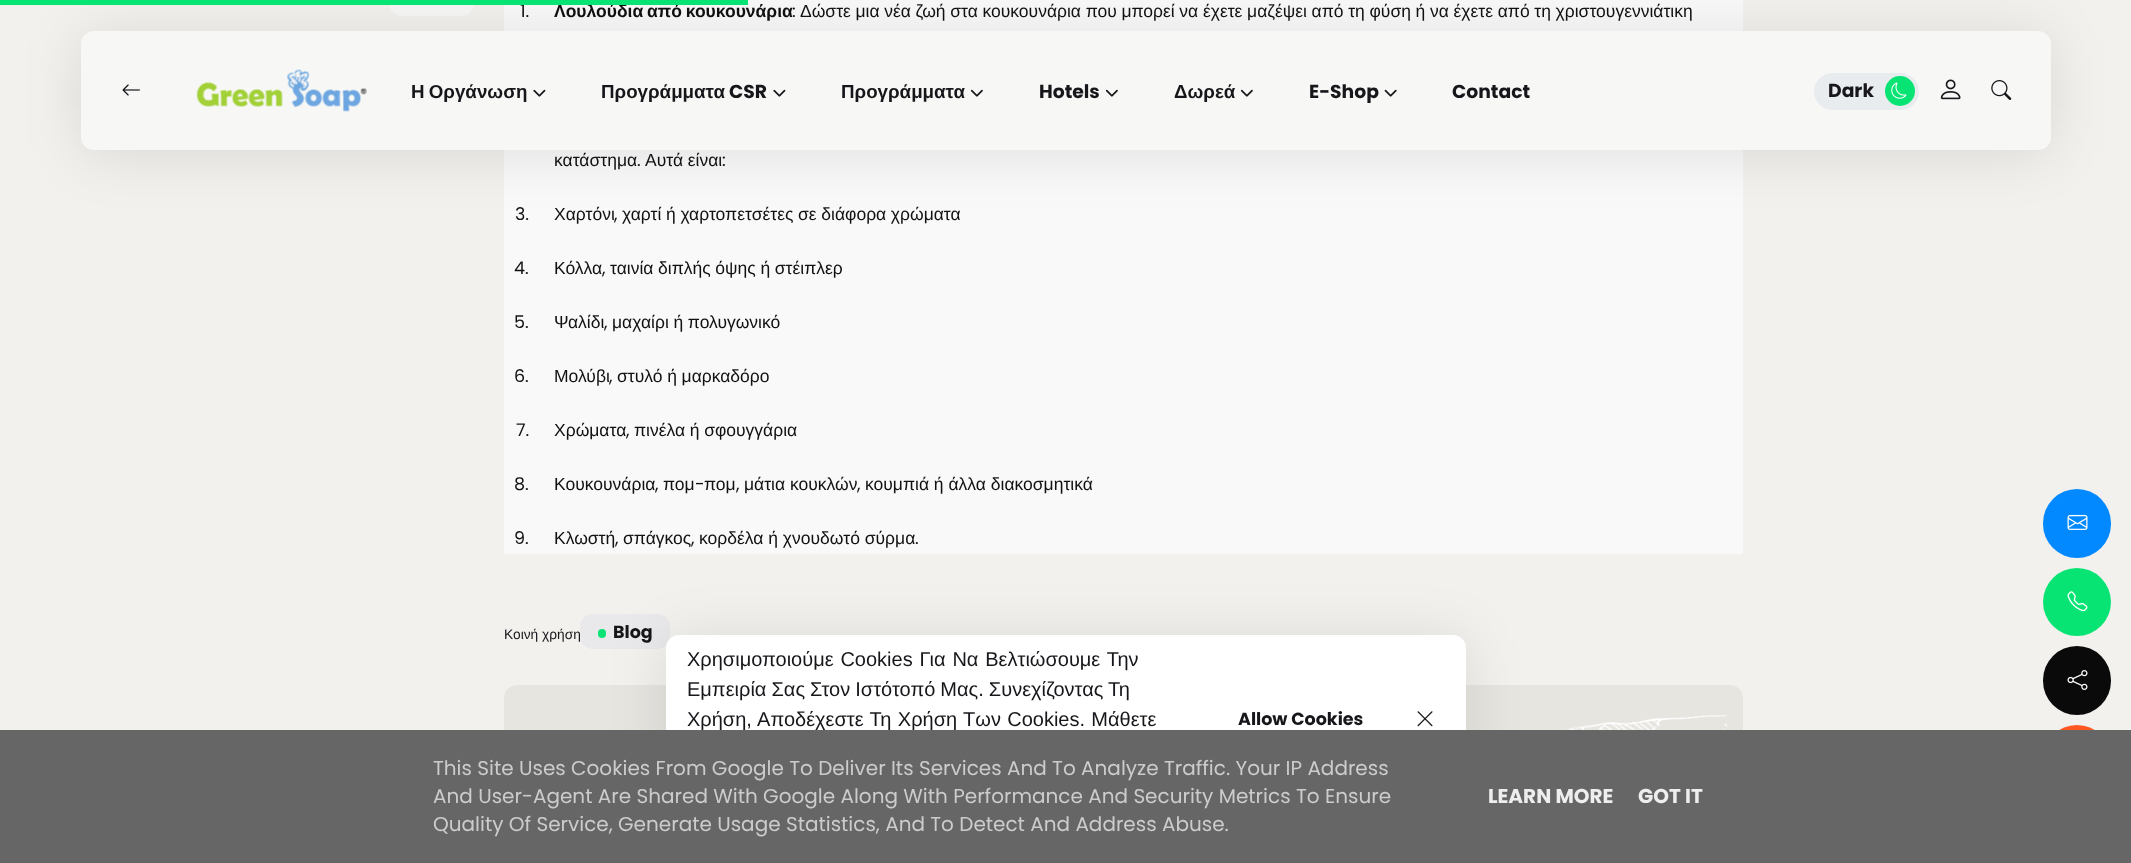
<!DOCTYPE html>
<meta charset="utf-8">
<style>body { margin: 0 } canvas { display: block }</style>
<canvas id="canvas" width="2131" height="863"></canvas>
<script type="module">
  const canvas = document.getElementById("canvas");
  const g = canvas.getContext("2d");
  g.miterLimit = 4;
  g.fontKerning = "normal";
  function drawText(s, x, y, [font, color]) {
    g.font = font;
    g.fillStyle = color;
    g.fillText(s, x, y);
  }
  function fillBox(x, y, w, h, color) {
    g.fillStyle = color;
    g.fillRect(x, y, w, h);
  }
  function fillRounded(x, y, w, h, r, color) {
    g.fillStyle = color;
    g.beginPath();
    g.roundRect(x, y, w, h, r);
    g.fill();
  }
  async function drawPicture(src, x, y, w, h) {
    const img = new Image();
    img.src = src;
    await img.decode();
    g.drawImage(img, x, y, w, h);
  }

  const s1 = ["17.5px Poppins", "#111111"];
  const s2 = ["bold 17.5px Liberation Sans", "#111111"];
  const s3 = ["17.5px Liberation Sans", "#111111"];
  const s4 = ["13.75px Liberation Sans", "#17161A"];
  const s5 = ["bold 17.5px Poppins", "#17161A"];
  const s6 = ["bold 18.75px Liberation Sans", "#17161A"];
  const s7 = ["bold 18.75px Poppins", "#17161A"];
  const s8 = ["20px Liberation Sans", "#17161A"];
  const s9 = ["20px Poppins", "#CCCCCC"];
  const s10 = ["bold 20px Poppins", "#EEEEEE"];

  fillBox(0, 0, 2131, 863, "#F3F1EE");
  fillRounded(389, -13, 85, 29, 13, "#F7F7F5");
  fillBox(504, 0, 1239, 554, "#FAF9F9");
  drawText("1.", 520, 17, s1);
  g.wordSpacing = "-1px";
  drawText("Λουλούδια από κουκουνάρια", 554, 17, s2);
  g.fillStyle = "rgba(0, 0, 0, 0.1)";
  g.filter = "blur(28px)";
  g.beginPath();
  g.roundRect(81, 35, 1970, 119, 13);
  g.fill();
  g.filter = "none";
  fillBox(0, 0, 748, 5, "#07E473");
  g.wordSpacing = "0px";
  drawText(":", 792, 17, s1);
  g.wordSpacing = "-0.2px";
  drawText("Δώστε μια νέα ζωή στα κουκουνάρια που μπορεί να έχετε μαζέψει από τη φύση ή να έχετε από τη χριστουγεννιάτικη", 800, 17, s3);
  g.wordSpacing = "0px";
  drawText("κατάστημα", 554, 166, s3);
  drawText(".", 637, 166, s1);
  g.wordSpacing = "-0.2px";
  drawText("Αυτά είναι", 645, 166, s3);
  g.wordSpacing = "0px";
  drawText(":", 722, 166, s1);
  drawText("3.", 515, 220, s1);
  drawText("Χαρτόνι", 554, 220, s3);
  drawText(",", 614, 220, s1);
  g.wordSpacing = "-0.2px";
  drawText("χαρτί ή χαρτοπετσέτες σε διάφορα χρώματα", 622, 220, s3);
  g.wordSpacing = "0px";
  drawText("4.", 514, 274, s1);
  drawText("Κόλλα", 554, 274, s3);
  drawText(",", 602, 274, s1);
  g.wordSpacing = "-0.2px";
  drawText("ταινία διπλής όψης ή στέιπλερ", 610, 274, s3);
  g.wordSpacing = "0px";
  drawText("5.", 514, 328, s1);
  drawText("Ψαλίδι", 554, 328, s3);
  drawText(",", 604, 328, s1);
  g.wordSpacing = "-0.2px";
  drawText("μαχαίρι ή πολυγωνικό", 612, 328, s3);
  g.wordSpacing = "0px";
  drawText("6.", 514, 382, s1);
  drawText("Μολύβι", 554, 382, s3);
  drawText(",", 609, 382, s1);
  g.wordSpacing = "-0.2px";
  drawText("στυλό ή μαρκαδόρο", 617, 382, s3);
  g.wordSpacing = "0px";
  drawText("7.", 516, 436, s1);
  drawText("Χρώματα", 554, 436, s3);
  drawText(",", 626, 436, s1);
  g.wordSpacing = "-0.2px";
  drawText("πινέλα ή σφουγγάρια", 634, 436, s3);
  g.wordSpacing = "0px";
  drawText("8.", 514, 490, s1);
  drawText("Κουκουνάρια", 554, 490, s3);
  drawText("πομ", 663, 490, s3);
  drawText("-", 695, 490, s1);
  drawText("πομ", 704, 490, s3);
  drawText("μάτια κουκλών", 744, 490, s3);
  drawText("κουμπιά ή άλλα διακοσμητικά", 865, 490, s3);
  drawText(",", 655, 490, s1);
  drawText(",", 736, 490, s1);
  drawText(",", 857, 490, s1);
  drawText("9.", 514, 544, s1);
  drawText("Κλωστή", 554, 544, s3);
  drawText(",", 615, 544, s1);
  drawText("σπάγκος", 623, 544, s3);
  drawText(",", 691, 544, s1);
  drawText("κορδέλα ή χνουδωτό σύρμα", 699, 544, s3);
  drawText(".", 915, 544, s1);
  drawText("Κοινή χρήση", 504, 639, s4);
  fillRounded(580, 614, 90, 35, 13, "#E9E9EB");
  fillRounded(598, 629, 8, 9, 4, "#07E473");
  drawText("Blog", 613, 638, s5);
  fillRounded(504, 685, 1239, 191, 13, "#E7E5E0");
  await drawPicture("pic1.png", 1561, 715, 167, 15);
  fillRounded(81, 31, 1970, 119, 13, "#F7F7F5");
  await drawPicture("pic2.png", 122, 84, 18, 12);
  await drawPicture("pic3.png", 196, 69, 171, 43);
  g.wordSpacing = "-1px";
  drawText("Η Οργάνωση", 411, 98, s6);
  await drawPicture("pic4.png", 533, 89, 13, 8);
  g.wordSpacing = "0px";
  drawText("Προγράμματα", 601, 98, s6);
  drawText("CSR", 729, 98, s7);
  await drawPicture("pic4.png", 773, 89, 13, 8);
  drawText("Προγράμματα", 841, 98, s6);
  await drawPicture("pic5.png", 970, 89, 13, 8);
  drawText("Hotels", 1039, 98, s7);
  await drawPicture("pic5.png", 1105, 89, 13, 8);
  drawText("Δωρεά", 1174, 98, s6);
  await drawPicture("pic5.png", 1240, 89, 13, 8);
  drawText("E-Shop", 1309, 98, s7);
  await drawPicture("pic6.png", 1384, 89, 13, 8);
  drawText("Contact", 1452, 98, s7);
  fillRounded(1814, 73, 105, 37, 18.5, "#E9ECEF");
  drawText("Dark", 1828, 97, s7);
  g.fillStyle = "#07E473";
  g.beginPath();
  g.arc(1900, 91, 15, 0, Math.PI * 2);
  g.fill();
  await drawPicture("pic7.png", 1891, 82, 16, 17);
  await drawPicture("pic8.png", 1940, 79, 21, 21);
  await drawPicture("pic9.png", 1991, 80, 21, 20);
  fillRounded(2043, 489, 68, 69, 34, "#0389FF");
  await drawPicture("pic10.png", 2067, 514, 21, 16);
  g.fillStyle = "#07E473";
  g.beginPath();
  g.arc(2077, 602, 34, 0, Math.PI * 2);
  g.fill();
  await drawPicture("pic11.png", 2067, 591, 21, 21);
  fillRounded(2043, 646, 68, 69, 34, "#0A0A0A");
  await drawPicture("pic12.png", 2067, 670, 21, 20);
  fillRounded(2043, 725, 68, 69, 34, "#FF5722");
  g.fillStyle = "rgba(0, 0, 0, 0.1)";
  g.filter = "blur(28px)";
  g.beginPath();
  g.roundRect(666, 639, 800, 169, 13);
  g.fill();
  g.filter = "none";
  fillRounded(666, 635, 800, 169, 13, "#FFFFFF");
  g.wordSpacing = "1.25px";
  drawText("Χρησιμοποιούμε Cookies Για Να Βελτιώσουμε Την", 687, 666, s8);
  g.wordSpacing = "-0.5px";
  drawText("Εμπειρία Σας Στον Ιστότοπό Μας. Συνεχίζοντας Τη", 687, 696, s8);
  g.wordSpacing = "0.75px";
  drawText("Χρήση, Αποδέχεστε Τη Χρήση Των Cookies. Μάθετε", 687, 726, s8);
  g.wordSpacing = "0px";
  drawText("Allow Cookies", 1238, 725, s5);
  await drawPicture("pic13.png", 1417, 711, 16, 16);
  fillBox(0, 730, 2131, 133, "#666666");
  drawText("This Site Uses Cookies From Google To Deliver Its Services And To Analyze Traffic. Your IP Address", 433, 775, s9);
  drawText("And User-Agent Are Shared With Google Along With Performance And Security Metrics To Ensure", 433, 803, s9);
  drawText("Quality Of Service, Generate Usage Statistics, And To Detect And Address Abuse.", 433, 831, s9);
  drawText("LEARN MORE", 1488, 803, s10);
  drawText("GOT IT", 1638, 803, s10);
</script>
